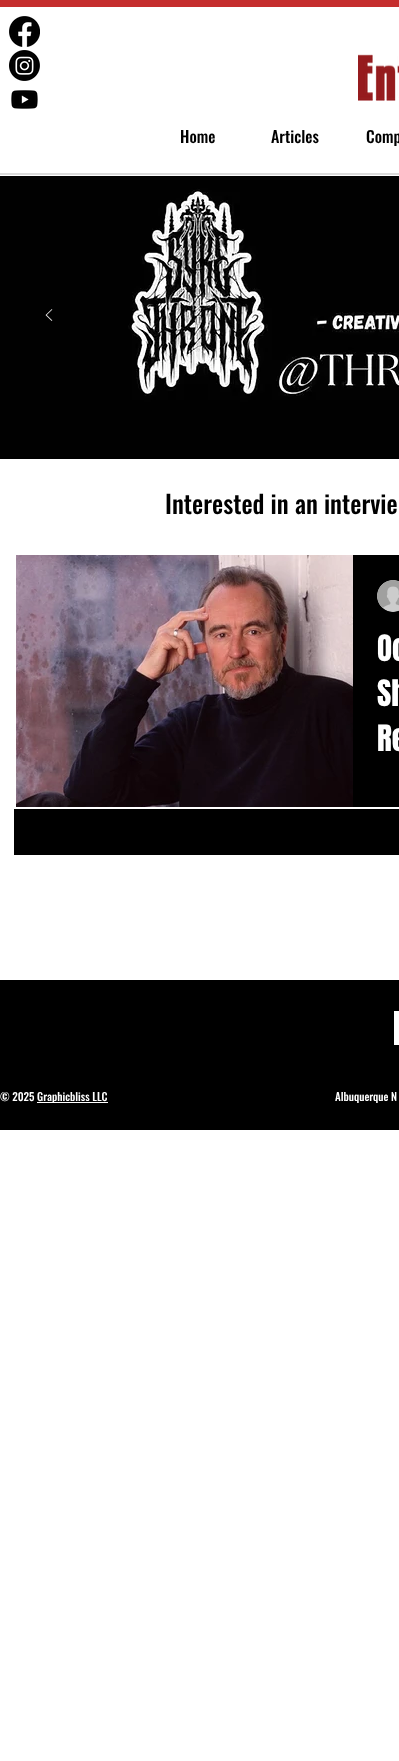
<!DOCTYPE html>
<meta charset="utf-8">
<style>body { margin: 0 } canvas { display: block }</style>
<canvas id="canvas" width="399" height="1761"></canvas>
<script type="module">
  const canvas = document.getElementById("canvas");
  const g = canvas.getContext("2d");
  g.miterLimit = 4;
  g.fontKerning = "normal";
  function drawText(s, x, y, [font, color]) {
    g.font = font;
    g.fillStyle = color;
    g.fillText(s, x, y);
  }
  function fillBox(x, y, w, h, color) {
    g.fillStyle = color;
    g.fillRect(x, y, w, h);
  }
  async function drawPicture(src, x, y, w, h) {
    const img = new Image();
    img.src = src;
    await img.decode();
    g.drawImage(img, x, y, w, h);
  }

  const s1 = ["500 16px Oswald", "#000000"];
  const s2 = ["500 25px Oswald", "#000000"];
  const s3 = ["31px Anton", "#FFFFFF"];
  const s4 = ["500 11px Oswald", "#FFFFFF"];

  fillBox(0, 0, 399, 1761, "#FFFFFF");
  fillBox(0, 0, 399, 7, "#C52D2D");
  await drawPicture("pic1.png", 9, 16, 31, 31);
  await drawPicture("pic2.png", 9, 50, 31, 31);
  await drawPicture("pic3.png", 11, 90, 27, 19);
  await drawPicture("pic4.png", 358, 54, 41, 47);
  drawText("Home", 180, 143, s1);
  drawText("Articles", 271, 143, s1);
  drawText("Comp", 366, 143, s1);
  fillBox(0, 173, 399, 2, "#DBDBDB");
  await drawPicture("pic5.png", 0, 176, 399, 281);
  await drawPicture("pic6.png", 45, 309, 8, 12);
  fillBox(0, 457, 399, 2, "#000000");
  drawText("Interested in an intervie", 165, 514, s2);
  fillBox(14, 809, 385, 46, "#000000");
  await drawPicture("pic7.png", 16, 555, 337, 252);
  fillBox(353, 555, 46, 252, "#000000");
  await drawPicture("pic8.png", 377, 580, 22, 32);
  drawText("Oc", 377, 661, s3);
  drawText("Sh", 377, 706, s3);
  drawText("Re", 377, 751, s3);
  fillBox(0, 980, 399, 150, "#000000");
  fillBox(394, 1011, 5, 34, "#FFFFFF");
  drawText("© 2025", 0, 1101, s4);
  fillBox(37, 1102, 71, 1, "#FFFFFF");
  drawText("Graphicbliss LLC", 37, 1101, s4);
  drawText("Albuquerque N", 335, 1101, s4);
</script>
